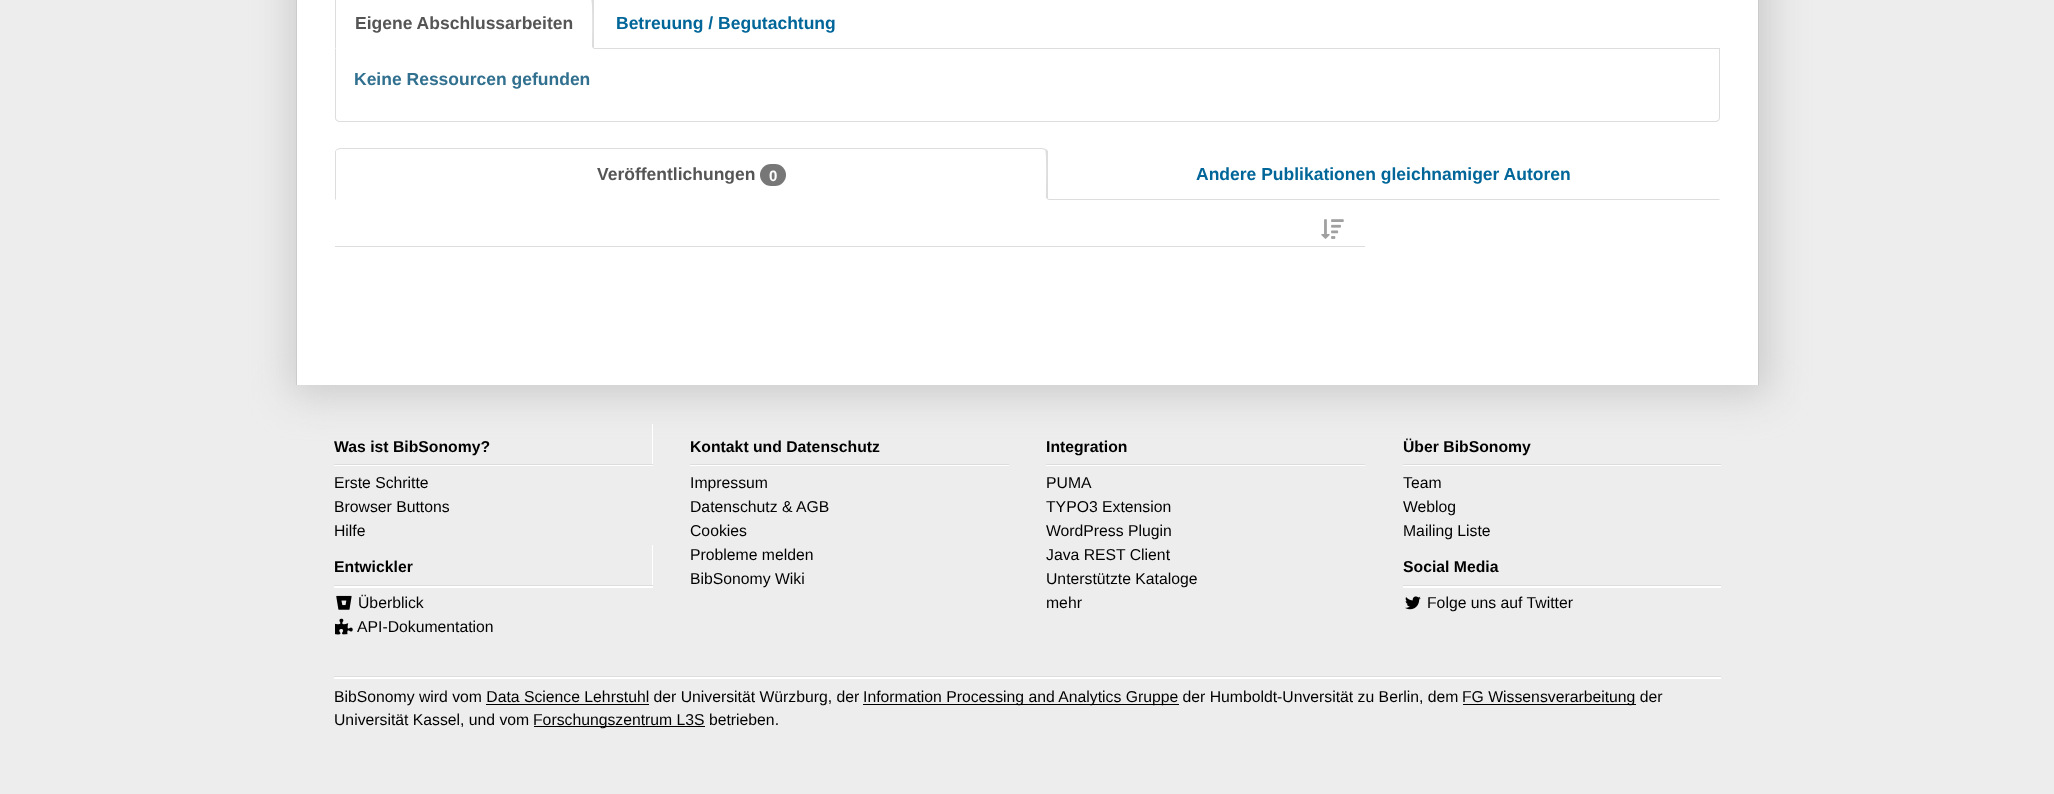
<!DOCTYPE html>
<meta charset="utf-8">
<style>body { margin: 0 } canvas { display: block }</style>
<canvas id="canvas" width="2054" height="794"></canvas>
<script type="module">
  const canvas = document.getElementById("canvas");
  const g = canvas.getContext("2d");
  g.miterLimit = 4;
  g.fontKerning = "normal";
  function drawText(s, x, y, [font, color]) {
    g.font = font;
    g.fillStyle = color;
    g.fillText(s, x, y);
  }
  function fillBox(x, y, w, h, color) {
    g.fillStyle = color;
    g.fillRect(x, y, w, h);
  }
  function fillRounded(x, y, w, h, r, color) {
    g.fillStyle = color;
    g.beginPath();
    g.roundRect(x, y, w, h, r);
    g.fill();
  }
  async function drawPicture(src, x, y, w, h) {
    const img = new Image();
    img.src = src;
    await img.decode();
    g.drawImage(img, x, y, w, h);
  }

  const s1 = ["bold 17.5px Liberation Sans", "#555555"];
  const s2 = ["bold 17.5px Liberation Sans", "#006699"];
  const s3 = ["bold 17.5px Liberation Sans", "#31708F"];
  const s4 = ["bold 15px Liberation Sans", "#FFFFFF"];
  const s5 = ["bold 15.75px Liberation Sans", "#000000"];
  const s6 = ["15.75px Liberation Sans", "#000000"];

  fillBox(0, 0, 2054, 794, "#EDEDED");
  g.fillStyle = "#CBCBCB";
  g.filter = "blur(19px)";
  g.beginPath();
  g.rect(291, -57, 1478, 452);
  g.fill();
  g.filter = "none";
  fillBox(297, 0, 1461, 385, "#FFFFFF");
  fillBox(1758, 0, 1, 385, "#CBCBCB");
  fillBox(296, 0, 1, 385, "#CBCBCB");
  fillBox(594, 48, 1126, 1, "#DDDDDD");
  g.beginPath();
  g.moveTo(593, -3);
  g.lineTo(594, -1);
  g.lineTo(594, 49);
  g.lineTo(592, 47);
  g.bezierCurveTo(592, 41, 593, 1, 591, -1);
  g.closePath();
  g.fill();
  g.beginPath();
  g.moveTo(335, 49);
  g.lineTo(336, 48);
  g.lineTo(336, 0);
  g.lineTo(337, -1);
  g.lineTo(336, -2);
  g.bezierCurveTo(335, -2, 335, 0, 335, 1);
  g.closePath();
  g.fill();
  drawText("Eigene Abschlussarbeiten", 355, 29, s1);
  drawText("Betreuung / Begutachtung", 616, 29, s2);
  g.fillStyle = "#DDDDDD";
  g.beginPath();
  g.moveTo(335, 49);
  g.lineTo(1720, 49);
  g.lineTo(1720, 118);
  g.bezierCurveTo(1720, 120, 1718, 122, 1715, 122);
  g.lineTo(340, 122);
  g.bezierCurveTo(337, 122, 335, 120, 335, 118);
  g.closePath();
  g.moveTo(336, 49);
  g.lineTo(1719, 49);
  g.lineTo(1719, 118);
  g.bezierCurveTo(1719, 120, 1717, 121, 1715, 121);
  g.lineTo(340, 121);
  g.bezierCurveTo(338, 121, 336, 120, 336, 118);
  g.closePath();
  g.fill("evenodd");
  drawText("Keine Ressourcen gefunden", 354, 85, s3);
  g.fillStyle = "#DDDDDD";
  g.beginPath();
  g.moveTo(340, 148);
  g.lineTo(337, 149);
  g.lineTo(337, 150);
  g.lineTo(340, 149);
  g.lineTo(1042, 149);
  g.lineTo(1045, 150);
  g.lineTo(1046, 149);
  g.lineTo(1042, 148);
  g.closePath();
  g.fill();
  g.beginPath();
  g.moveTo(1048, 151);
  g.lineTo(1048, 200);
  g.lineTo(1046, 198);
  g.bezierCurveTo(1046, 193, 1047, 151, 1045, 150);
  g.lineTo(1046, 149);
  g.closePath();
  g.fill();
  g.fillStyle = "#FFFFFF";
  g.beginPath();
  g.moveTo(1048, 200);
  g.lineTo(1046, 198);
  g.lineTo(1046, 199);
  g.lineTo(336, 199);
  g.lineTo(335, 200);
  g.closePath();
  g.fill();
  g.fillStyle = "#DDDDDD";
  g.beginPath();
  g.moveTo(335, 200);
  g.lineTo(336, 199);
  g.lineTo(336, 151);
  g.lineTo(337, 150);
  g.lineTo(337, 149);
  g.bezierCurveTo(336, 150, 335, 151, 335, 152);
  g.closePath();
  g.fill();
  drawText("Veröffentlichungen", 597, 180, s1);
  fillRounded(760, 164, 26, 22, 11, "#777777");
  drawText("0", 769, 181, s4);
  g.fillStyle = "#DDDDDD";
  g.beginPath();
  g.moveTo(1720, 200);
  g.lineTo(1719, 199);
  g.lineTo(1049, 199);
  g.lineTo(1049, 198);
  g.lineTo(1048, 200);
  g.closePath();
  g.fill();
  drawText("Andere Publikationen gleichnamiger Autoren", 1196, 180, s2);
  fillBox(335, 246, 1030, 1, "#DDDDDD");
  await drawPicture("pic1.png", 1321, 219, 23, 20);
  g.fillStyle = "#FFFFFF";
  g.beginPath();
  g.moveTo(334, 465);
  g.lineTo(334, 466);
  g.lineTo(653, 466);
  g.lineTo(653, 424);
  g.lineTo(652, 424);
  g.lineTo(652, 465);
  g.closePath();
  g.fill();
  fillBox(334, 464, 319, 1, "#DDDDDD");
  drawText("Was ist BibSonomy?", 334, 452, s5);
  drawText("Erste Schritte", 334, 488, s6);
  drawText("Browser Buttons", 334, 512, s6);
  drawText("Hilfe", 334, 536, s6);
  g.fillStyle = "#FFFFFF";
  g.beginPath();
  g.moveTo(334, 586);
  g.lineTo(334, 588);
  g.lineTo(653, 588);
  g.lineTo(653, 545);
  g.lineTo(652, 545);
  g.lineTo(652, 586);
  g.closePath();
  g.fill();
  fillBox(334, 585, 319, 1, "#DDDDDD");
  drawText("Entwickler", 334, 572, s5);
  await drawPicture("pic2.png", 336, 595, 16, 15);
  drawText("Überblick", 358, 608, s6);
  await drawPicture("pic3.png", 335, 618, 18, 17);
  drawText("API-Dokumentation", 357, 632, s6);
  g.fillStyle = "#FFFFFF";
  g.beginPath();
  g.moveTo(690, 465);
  g.lineTo(690, 466);
  g.lineTo(1009, 466);
  g.lineTo(1009, 424);
  g.lineTo(1009, 465);
  g.closePath();
  g.fill();
  fillBox(690, 464, 319, 1, "#DDDDDD");
  drawText("Kontakt und Datenschutz", 690, 452, s5);
  drawText("Impressum", 690, 488, s6);
  drawText("Datenschutz & AGB", 690, 512, s6);
  drawText("Cookies", 690, 536, s6);
  drawText("Probleme melden", 690, 560, s6);
  drawText("BibSonomy Wiki", 690, 584, s6);
  g.fillStyle = "#FFFFFF";
  g.beginPath();
  g.moveTo(1046, 424);
  g.lineTo(1046, 466);
  g.lineTo(1365, 466);
  g.lineTo(1365, 465);
  g.lineTo(1046, 465);
  g.closePath();
  g.fill();
  fillBox(1046, 464, 319, 1, "#DDDDDD");
  drawText("Integration", 1046, 452, s5);
  drawText("PUMA", 1046, 488, s6);
  drawText("TYPO3 Extension", 1046, 512, s6);
  drawText("WordPress Plugin", 1046, 536, s6);
  drawText("Java REST Client", 1046, 560, s6);
  drawText("Unterstützte Kataloge", 1046, 584, s6);
  drawText("mehr", 1046, 608, s6);
  fillBox(1403, 465, 318, 1, "#FFFFFF");
  fillBox(1403, 464, 318, 1, "#DDDDDD");
  drawText("Über BibSonomy", 1403, 452, s5);
  drawText("Team", 1403, 488, s6);
  drawText("Weblog", 1403, 512, s6);
  drawText("Mailing Liste", 1403, 536, s6);
  fillBox(1403, 586, 318, 2, "#FFFFFF");
  fillBox(1403, 585, 318, 1, "#DDDDDD");
  drawText("Social Media", 1403, 572, s5);
  await drawPicture("pic4.png", 1405, 596, 16, 14);
  drawText("Folge uns auf Twitter", 1427, 608, s6);
  g.fillStyle = "#FFFFFF";
  g.filter = "blur(0.5px)";
  g.beginPath();
  g.rect(334, 676, 1387, 3);
  g.fill();
  g.filter = "none";
  fillBox(334, 676, 1387, 1, "#DDDDDD");
  drawText("BibSonomy wird vom Data Science Lehrstuhl der Universität Würzburg, der", 334, 702, s6);
  fillBox(863, 704, 316, 1, "#000000");
  drawText("Information Processing and Analytics Gruppe der Humboldt-Unversität zu Berlin, dem", 863, 702, s6);
  fillBox(1463, 704, 173, 1, "#000000");
  drawText("FG Wissensverarbeitung der", 1462, 702, s6);
  fillBox(486, 704, 163, 1, "#000000");
  drawText("Universität Kassel, und vom", 334, 725, s6);
  fillBox(534, 726, 171, 1, "#000000");
  drawText("Forschungszentrum L3S betrieben.", 533, 725, s6);
</script>
